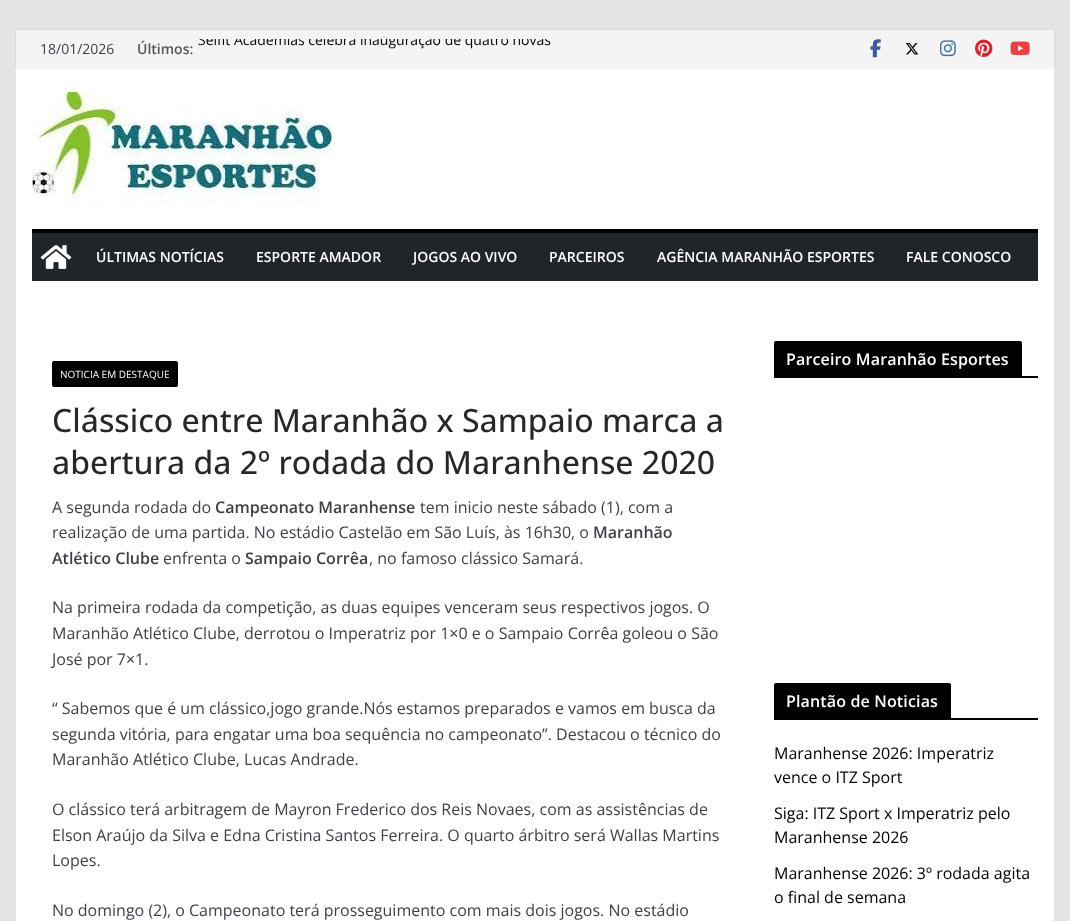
<!DOCTYPE html>
<meta charset="utf-8">
<style>body { margin: 0 } canvas { display: block }</style>
<canvas id="canvas" width="1070" height="921"></canvas>
<script type="module">
  const canvas = document.getElementById("canvas");
  const g = canvas.getContext("2d");
  g.miterLimit = 4;
  g.fontKerning = "normal";
  function drawText(s, x, y, [font, color]) {
    g.font = font;
    g.fillStyle = color;
    g.fillText(s, x, y);
  }
  function fillBox(x, y, w, h, color) {
    g.fillStyle = color;
    g.fillRect(x, y, w, h);
  }
  function fillRounded(x, y, w, h, r, color) {
    g.fillStyle = color;
    g.beginPath();
    g.roundRect(x, y, w, h, r);
    g.fill();
  }
  async function drawPicture(src, x, y, w, h) {
    const img = new Image();
    img.src = src;
    await img.decode();
    g.drawImage(img, x, y, w, h);
  }

  const s1 = ["14px Open Sans", "#3F3F46"];
  const s2 = ["600 14px Open Sans", "#555555"];
  const s3 = ["14px Open Sans", "#000000"];
  const s4 = ["600 14px Open Sans", "#FFFFFF"];
  const s5 = ["10px Open Sans", "#FFFFFF"];
  const s6 = ["500 32px Open Sans", "#27272A"];
  const s7 = ["16px Open Sans", "#3F3F46"];
  const s8 = ["600 16px Open Sans", "#3F3F46"];
  const s9 = ["600 16px Open Sans", "#FFFFFF"];
  const s10 = ["16px Open Sans", "#000000"];

  fillBox(0, 0, 1070, 921, "#E4E4E7");
  fillBox(16, 68, 1038, 853, "#FFFFFF");
  g.fillStyle = "rgba(0, 0, 0, 0.1)";
  g.filter = "blur(1px)";
  g.beginPath();
  g.rect(16, 30, 1038, 38);
  g.fill();
  g.filter = "none";
  fillBox(16, 30, 1038, 38, "#F4F4F5");
  drawText("18/01/2026", 40, 54, s1);
  drawText("Últimos:", 137, 54, s2);
  g.save();
  g.beginPath();
  g.rect(198, 39, 400, 20);
  g.clip();
  drawText("Selfit Academias celebra inauguração de quatro novas", 198, 45, s3);
  g.restore();
  await drawPicture("pic1.png", 870, 39, 11, 19);
  await drawPicture("pic2.png", 905, 43, 14, 12);
  await drawPicture("pic3.png", 940, 40, 16, 17);
  await drawPicture("pic4.png", 975, 39, 18, 18);
  await drawPicture("pic5.png", 1010, 41, 20, 14);
  await drawPicture("pic6.png", 32, 92, 300, 113);
  fillBox(32, 233, 1006, 48, "#212529");
  fillBox(32, 229, 1006, 4, "#000000");
  await drawPicture("pic7.png", 40, 245, 32, 24);
  drawText("ÚLTIMAS NOTÍCIAS", 96, 262, s4);
  drawText("ESPORTE AMADOR", 256, 262, s4);
  drawText("JOGOS AO VIVO", 413, 262, s4);
  drawText("PARCEIROS", 549, 262, s4);
  drawText("AGÊNCIA MARANHÃO ESPORTES", 657, 262, s4);
  drawText("FALE CONOSCO", 906, 262, s4);
  fillRounded(52, 361, 126, 26, 2, "#000000");
  drawText("NOTICIA EM DESTAQUE", 60, 378, s5);
  drawText("Clássico entre Maranhão x Sampaio marca a", 52, 432, s6);
  drawText("abertura da 2º rodada do Maranhense 2020", 52, 474, s6);
  drawText("A segunda rodada do", 52, 513, s7);
  drawText("Campeonato Maranhense", 215, 513, s8);
  drawText("tem inicio neste sábado (1), com a", 420, 513, s7);
  drawText("realização de uma partida. No estádio Castelão em São Luís, às 16h30, o", 52, 538, s7);
  drawText("Maranhão", 593, 538, s8);
  drawText("Atlético Clube", 52, 564, s8);
  drawText("enfrenta o", 163, 564, s7);
  drawText("Sampaio Corrêa", 245, 564, s8);
  drawText(", no famoso clássico Samará.", 369, 564, s7);
  drawText("Na primeira rodada da competição, as duas equipes venceram seus respectivos jogos. O", 52, 613, s7);
  drawText("Maranhão Atlético Clube, derrotou o Imperatriz por 1×0 e o Sampaio Corrêa goleou o São", 52, 639, s7);
  drawText("José por 7×1.", 52, 665, s7);
  drawText("“ Sabemos que é um clássico,jogo grande.Nós estamos preparados e vamos em busca da", 52, 714, s7);
  drawText("segunda vitória, para engatar uma boa sequência no campeonato”. Destacou o técnico do", 52, 740, s7);
  drawText("Maranhão Atlético Clube, Lucas Andrade.", 52, 765, s7);
  drawText("O clássico terá arbitragem de Mayron Frederico dos Reis Novaes, com as assistências de", 52, 815, s7);
  drawText("Elson Araújo da Silva e Edna Cristina Santos Ferreira. O quarto árbitro será Wallas Martins", 52, 841, s7);
  drawText("Lopes.", 52, 866, s7);
  drawText("No domingo (2), o Campeonato terá prosseguimento com mais dois jogos. No estádio", 52, 916, s7);
  fillBox(774, 376, 264, 2, "#000000");
  g.beginPath();
  g.roundRect(774, 341, 248, 35, [2, 2, 0, 0]);
  g.fill();
  g.letterSpacing = "0.15px";
  drawText("Parceiro Maranhão Esportes", 786, 365, s9);
  fillBox(774, 718, 264, 2, "#000000");
  g.beginPath();
  g.roundRect(774, 683, 177, 35, [2, 2, 0, 0]);
  g.fill();
  drawText("Plantão de Noticias", 786, 707, s9);
  g.letterSpacing = "0px";
  drawText("Maranhense 2026: Imperatriz", 774, 759, s10);
  drawText("vence o ITZ Sport", 774, 783, s10);
  drawText("Siga: ITZ Sport x Imperatriz pelo", 774, 819, s10);
  drawText("Maranhense 2026", 774, 843, s10);
  drawText("Maranhense 2026: 3º rodada agita", 774, 879, s10);
  drawText("o final de semana", 774, 903, s10);
</script>
